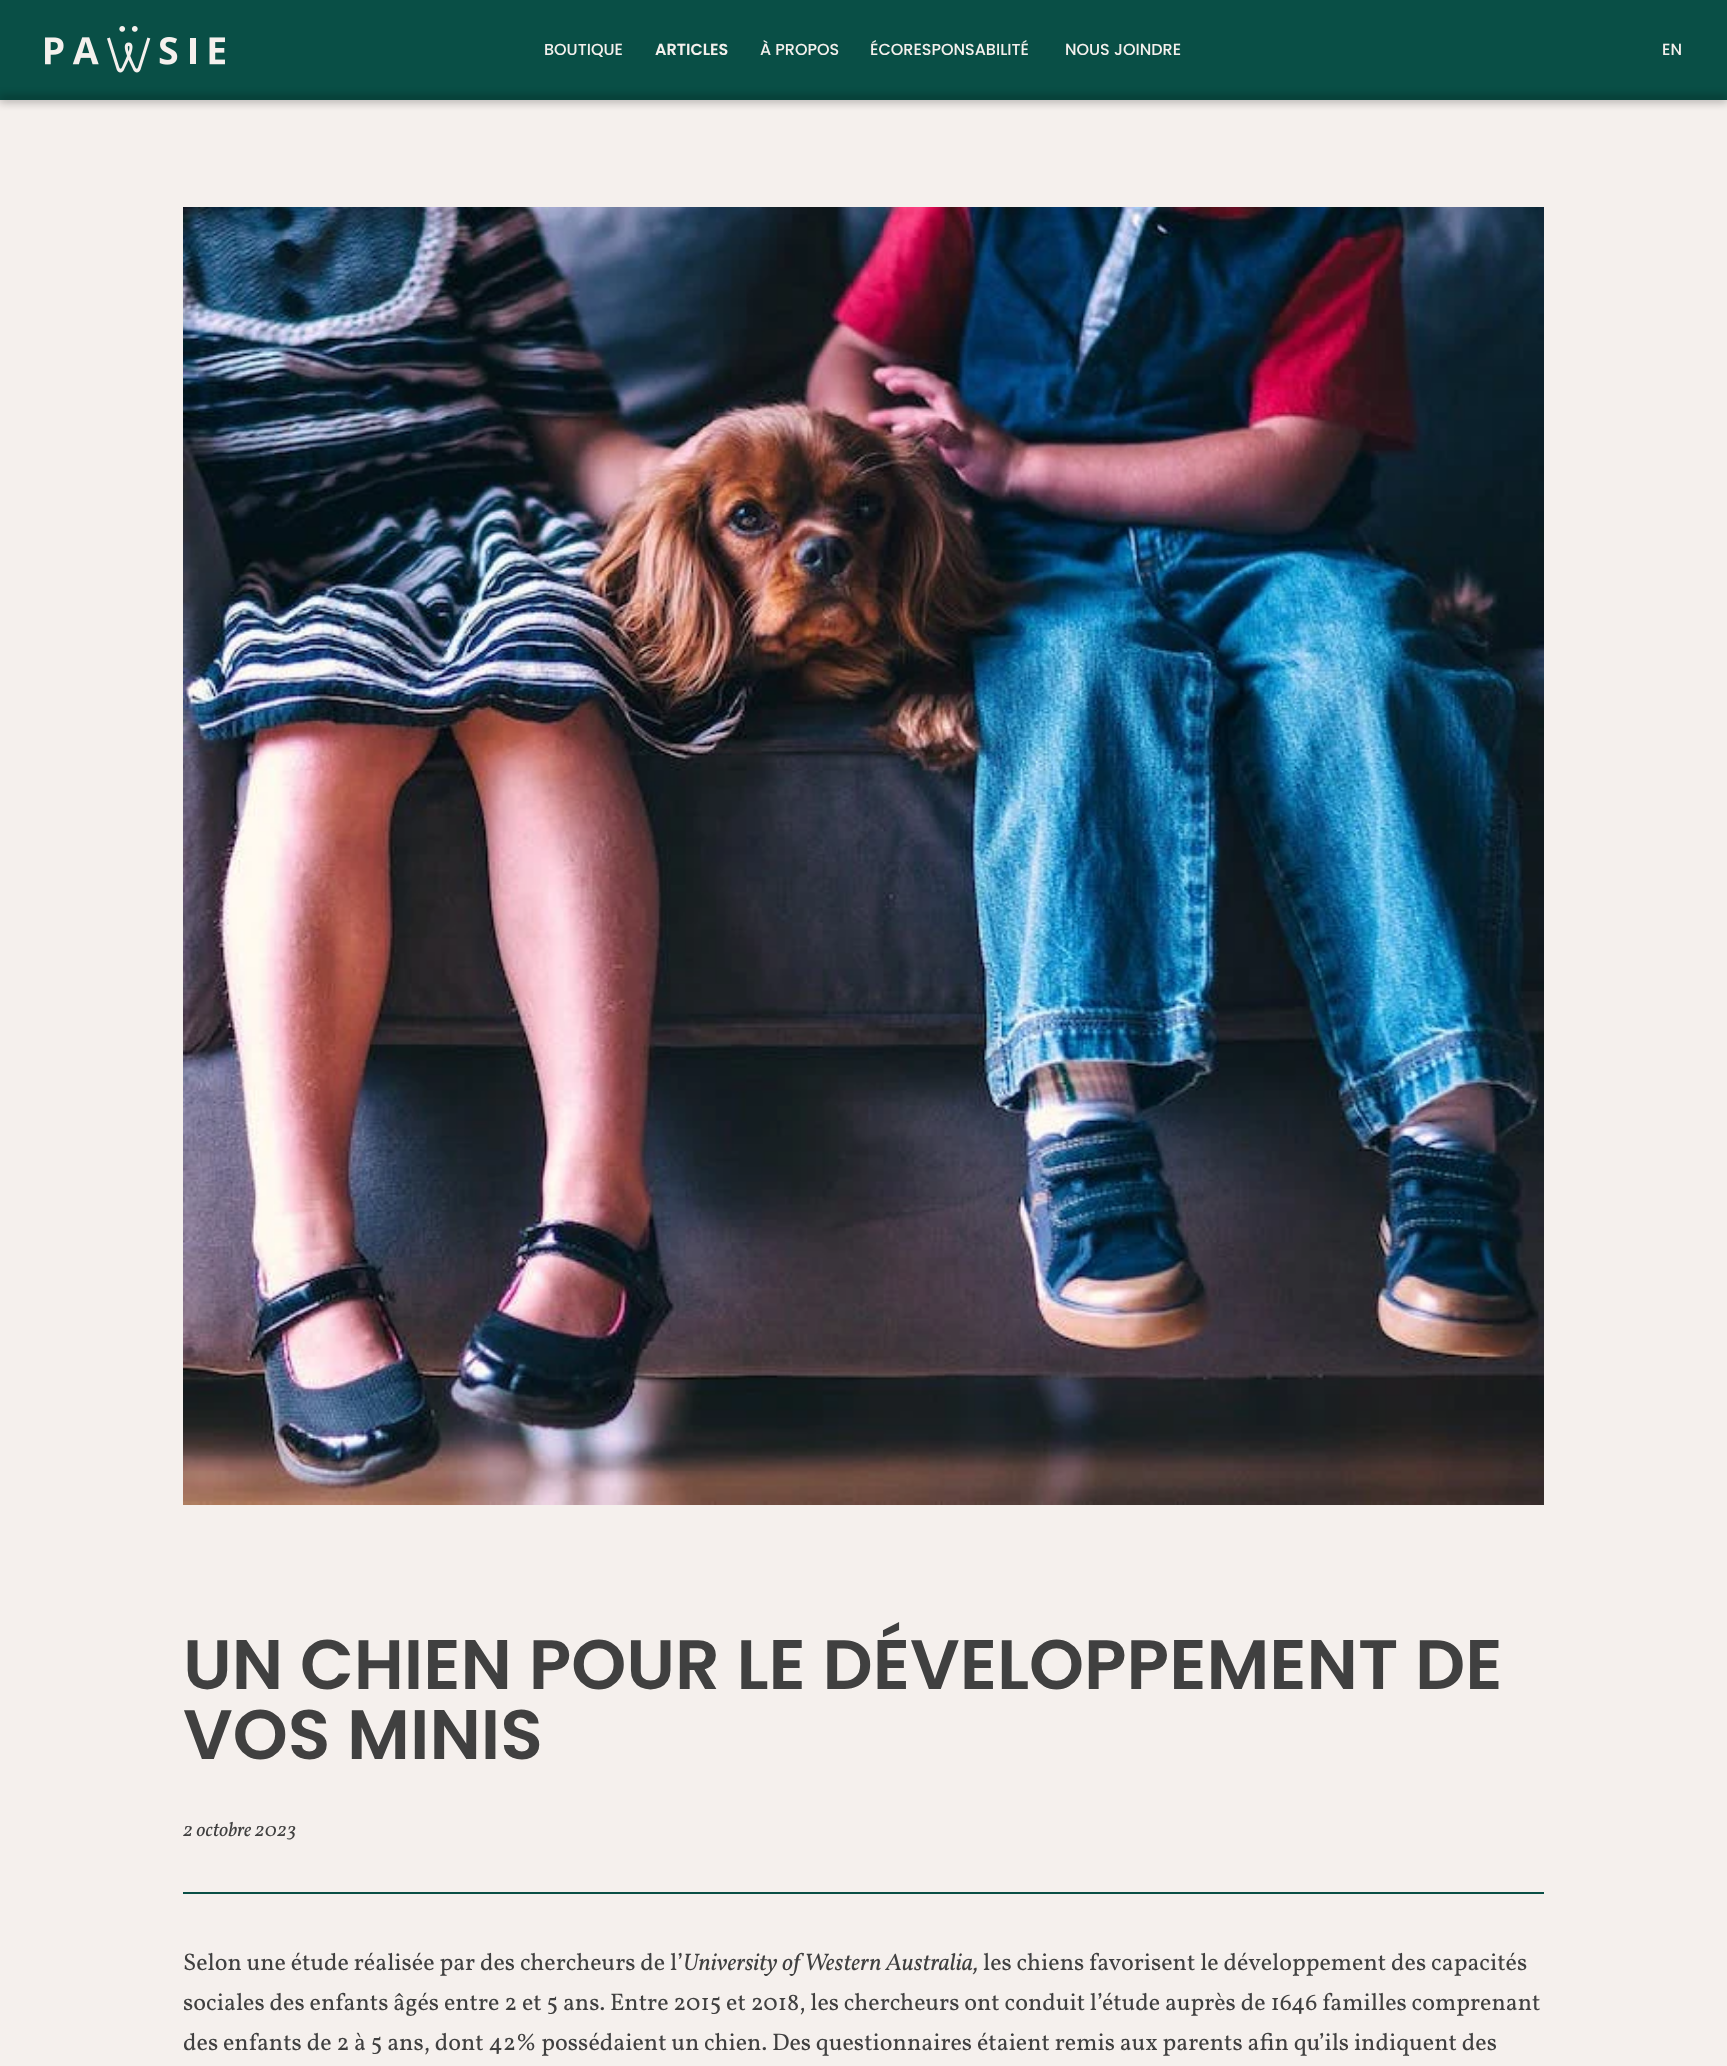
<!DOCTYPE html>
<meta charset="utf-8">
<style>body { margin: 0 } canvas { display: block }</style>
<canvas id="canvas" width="1727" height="2066"></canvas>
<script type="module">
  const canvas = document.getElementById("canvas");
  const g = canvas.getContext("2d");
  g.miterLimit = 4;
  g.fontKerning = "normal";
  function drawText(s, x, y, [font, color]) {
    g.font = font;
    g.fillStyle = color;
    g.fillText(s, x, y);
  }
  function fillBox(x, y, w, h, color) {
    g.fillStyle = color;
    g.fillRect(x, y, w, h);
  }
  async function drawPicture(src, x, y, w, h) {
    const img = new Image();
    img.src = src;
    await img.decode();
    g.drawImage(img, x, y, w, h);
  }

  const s1 = ["500 16px Poppins", "#F5F0ED"];
  const s2 = ["600 16px Poppins", "#F5F0ED"];
  const s3 = ["600 70px Poppins", "#404040"];
  const s4 = ["italic 20px Vollkorn", "#404040"];
  const s5 = ["24px Vollkorn", "#404040"];
  const s6 = ["italic 24px Vollkorn", "#404040"];

  fillBox(0, 0, 1727, 2066, "#F5F0ED");
  fillBox(0, 0, 1727, 100, "#094F46");
  await drawPicture("pic1.png", 45, 26, 180, 47);
  drawText("BOUTIQUE", 544, 55, s1);
  drawText("ARTICLES", 655, 55, s2);
  drawText("À PROPOS", 760, 55, s1);
  drawText("ÉCORESPONSABILITÉ", 870, 55, s1);
  drawText("NOUS JOINDRE", 1065, 55, s1);
  drawText("EN", 1662, 55, s1);
  g.fillStyle = "#000000";
  g.filter = "blur(5px)";
  g.beginPath();
  g.rect(-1, 98, 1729, 2);
  g.fill();
  g.filter = "none";
  await drawPicture("pic2.png", 183, 207, 1361, 1298);
  drawText("UN CHIEN POUR LE DÉVELOPPEMENT DE", 183, 1689, s3);
  drawText("VOS MINIS", 183, 1759, s3);
  drawText("2 octobre 2023", 183, 1836, s4);
  fillBox(183, 1892, 1361, 2, "#094F46");
  drawText("Selon une étude réalisée par des chercheurs de l’", 183, 1970, s5);
  drawText("University of Western Australia,", 683, 1970, s6);
  drawText("les chiens favorisent le développement des capacités", 983, 1970, s5);
  drawText("sociales des enfants âgés entre 2 et 5 ans. Entre 2015 et 2018, les chercheurs ont conduit l’étude auprès de 1646 familles comprenant", 183, 2010, s5);
  drawText("des enfants de 2 à 5 ans, dont 42% possédaient un chien. Des questionnaires étaient remis aux parents afin qu’ils indiquent des", 183, 2050, s5);
</script>
